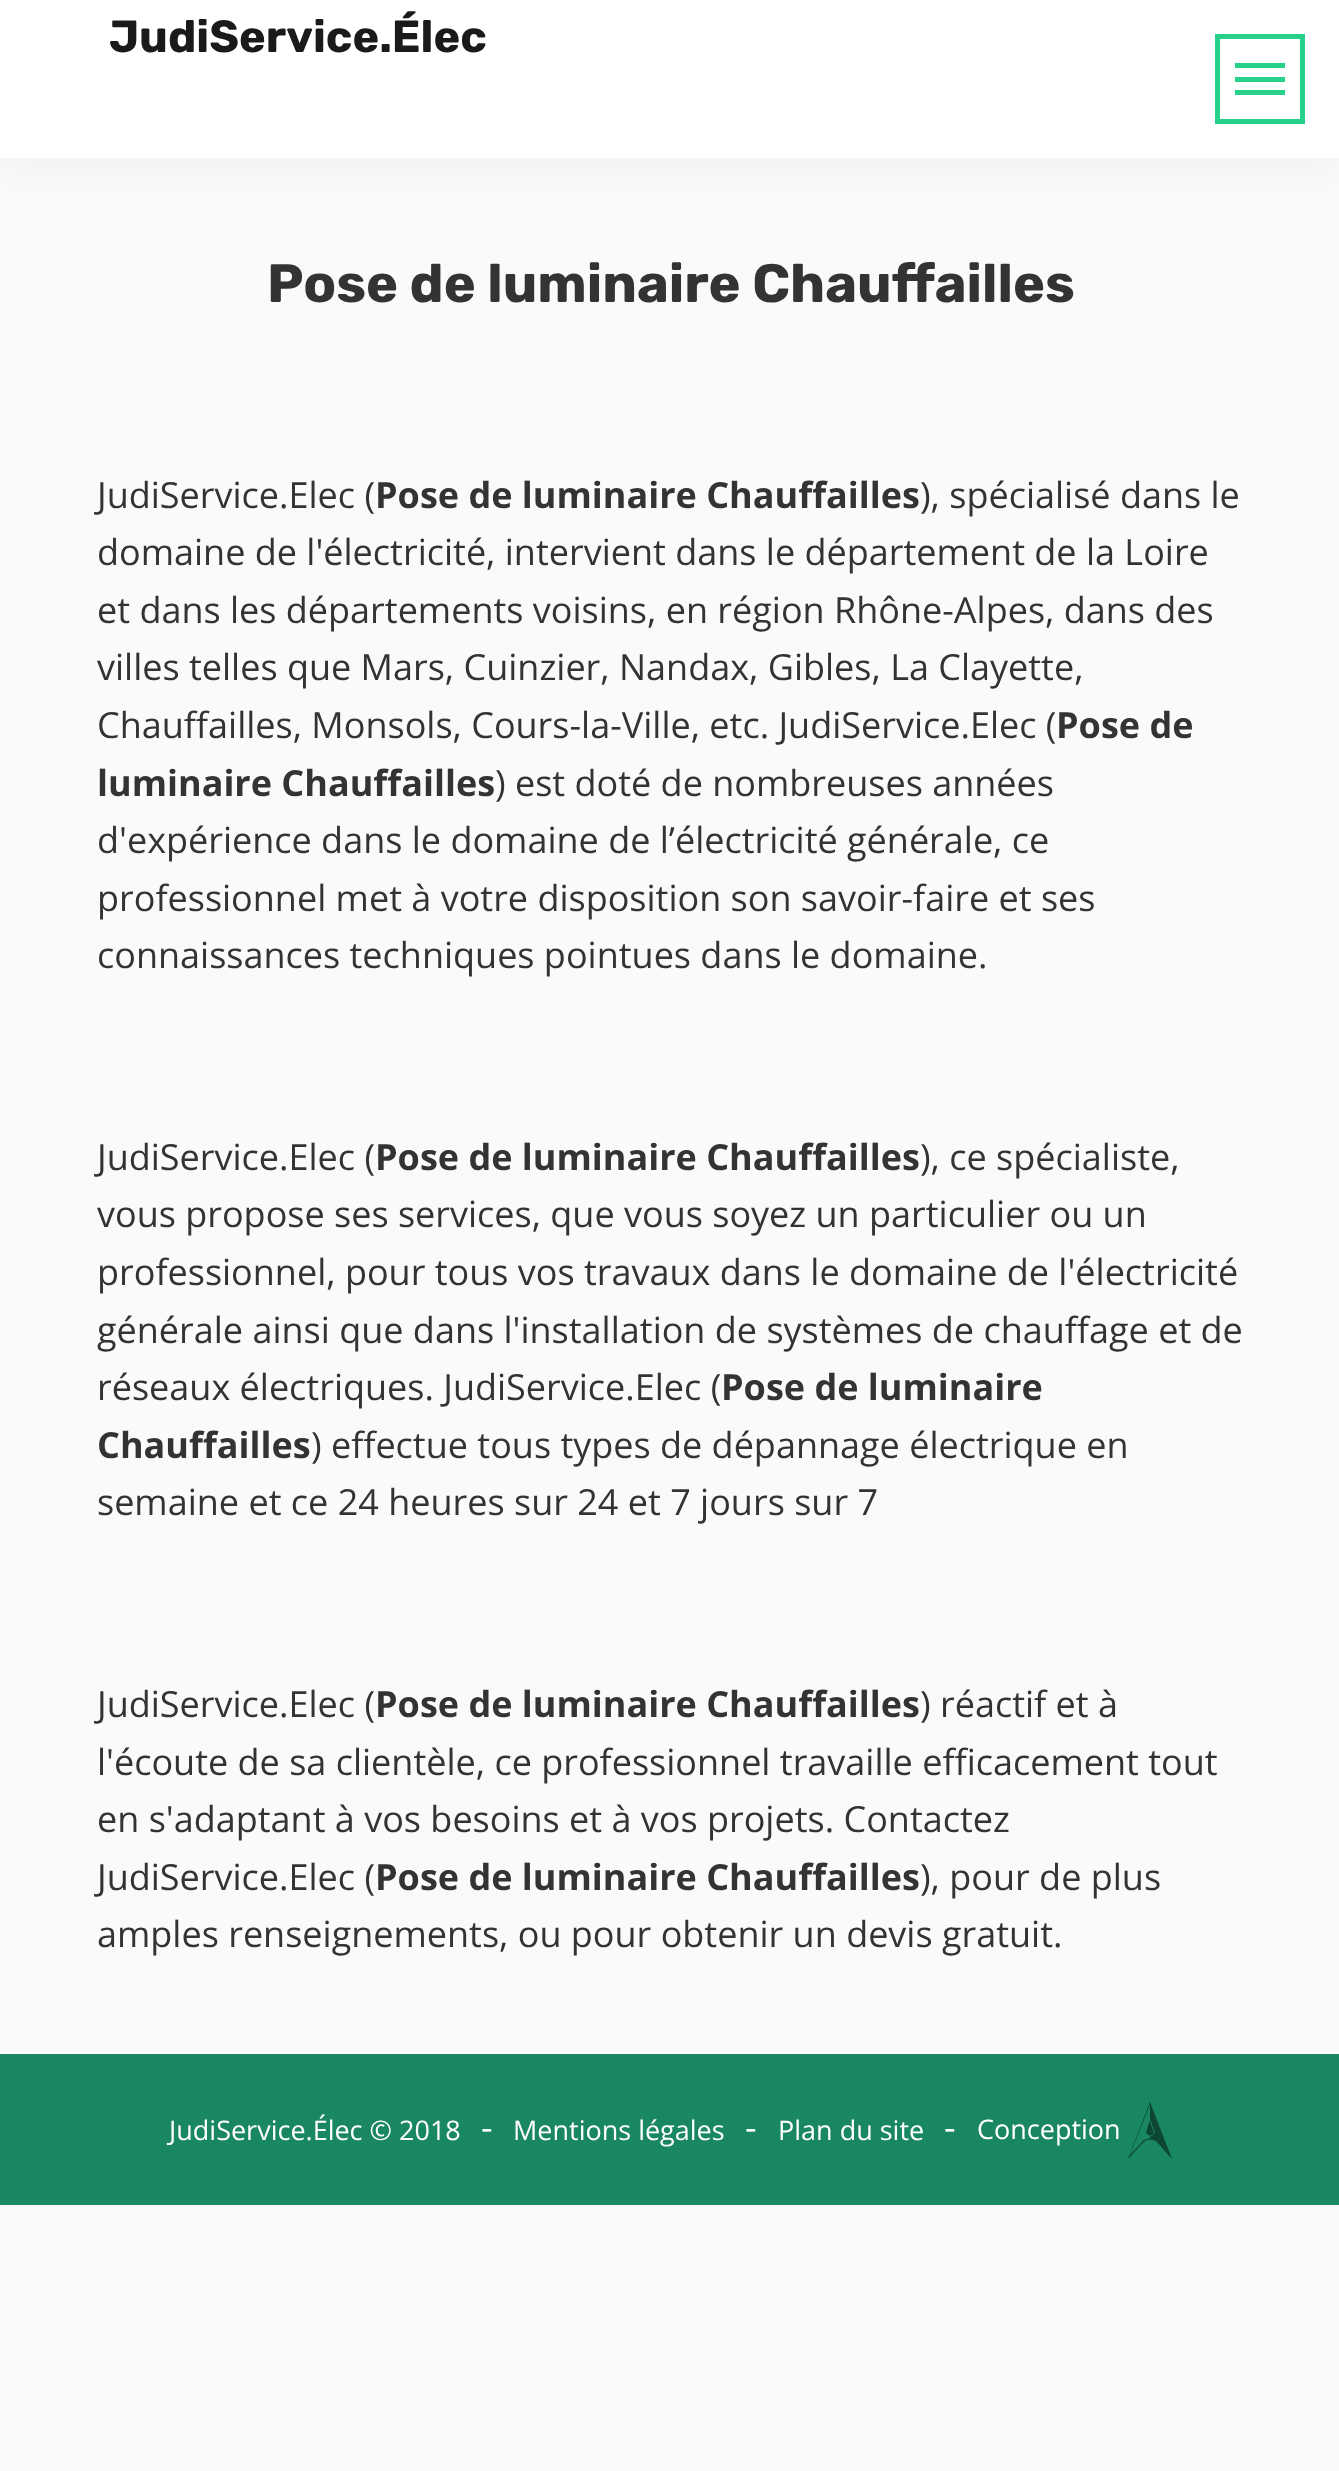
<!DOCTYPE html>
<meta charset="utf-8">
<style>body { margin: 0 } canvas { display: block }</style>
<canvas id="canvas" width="1339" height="2471"></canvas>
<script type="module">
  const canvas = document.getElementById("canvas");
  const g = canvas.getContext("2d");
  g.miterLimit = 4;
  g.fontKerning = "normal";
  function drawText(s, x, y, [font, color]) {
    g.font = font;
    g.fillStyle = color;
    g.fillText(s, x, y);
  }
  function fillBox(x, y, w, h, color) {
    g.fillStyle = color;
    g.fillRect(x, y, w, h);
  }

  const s1 = ["bold 45px Rubik", "#1A1A1A"];
  const s2 = ["bold 54px Rubik", "#333333"];
  const s3 = ["36px Open Sans", "#333333"];
  const s4 = ["bold 36px Open Sans", "#333333"];
  const s5 = ["27px Open Sans", "#FFFFFF"];
  const s6 = ["36px Open Sans", "#FFFFFF"];

  fillBox(0, 0, 1339, 2471, "#FBFAFA");
  g.fillStyle = "rgba(0, 0, 0, 0.04)";
  g.filter = "blur(22.5px)";
  g.beginPath();
  g.rect(0, 9, 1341, 158);
  g.fill();
  g.filter = "none";
  fillBox(0, 0, 1339, 158, "#FFFFFF");
  drawText("JudiService.Élec", 109, 52, s1);
  g.strokeStyle = "#28D18A";
  g.lineWidth = 5;
  g.strokeRect(1217.5, 36.5, 85, 85);
  fillBox(1235, 63, 50, 5, "#28D18A");
  fillBox(1235, 77, 50, 5, "#28D18A");
  fillBox(1235, 90, 50, 5, "#28D18A");
  drawText("Pose de luminaire Chauffailles", 267, 302, s2);
  drawText("JudiService.Elec (", 97, 508, s3);
  drawText("Pose de luminaire Chauffailles", 375, 508, s4);
  drawText("), spécialisé dans le", 920, 508, s3);
  drawText("domaine de l'électricité, intervient dans le département de la Loire", 97, 565, s3);
  drawText("et dans les départements voisins, en région Rhône-Alpes, dans des", 97, 623, s3);
  drawText("villes telles que Mars, Cuinzier, Nandax, Gibles, La Clayette,", 97, 680, s3);
  drawText("Chauffailles, Monsols, Cours-la-Ville, etc. JudiService.Elec (", 97, 738, s3);
  drawText("Pose de", 1056, 738, s4);
  drawText("luminaire Chauffailles", 97, 796, s4);
  drawText(") est doté de nombreuses années", 495, 796, s3);
  drawText("d'expérience dans le domaine de l’électricité générale, ce", 97, 853, s3);
  drawText("professionnel met à votre disposition son savoir-faire et ses", 97, 911, s3);
  drawText("connaissances techniques pointues dans le domaine.", 97, 968, s3);
  drawText("JudiService.Elec (", 97, 1170, s3);
  drawText("Pose de luminaire Chauffailles", 375, 1170, s4);
  drawText("), ce spécialiste,", 920, 1170, s3);
  drawText("vous propose ses services, que vous soyez un particulier ou un", 97, 1227, s3);
  drawText("professionnel, pour tous vos travaux dans le domaine de l'électricité", 97, 1285, s3);
  drawText("générale ainsi que dans l'installation de systèmes de chauffage et de", 97, 1343, s3);
  drawText("réseaux électriques. JudiService.Elec (", 97, 1400, s3);
  drawText("Pose de luminaire", 721, 1400, s4);
  drawText("Chauffailles", 97, 1458, s4);
  drawText(") effectue tous types de dépannage électrique en", 311, 1458, s3);
  drawText("semaine et ce 24 heures sur 24 et 7 jours sur 7", 97, 1515, s3);
  drawText("JudiService.Elec (", 97, 1717, s3);
  drawText("Pose de luminaire Chauffailles", 375, 1717, s4);
  drawText(") réactif et à", 920, 1717, s3);
  drawText("l'écoute de sa clientèle, ce professionnel travaille efficacement tout", 97, 1775, s3);
  drawText("en s'adaptant à vos besoins et à vos projets. Contactez", 97, 1832, s3);
  drawText("JudiService.Elec (", 97, 1890, s3);
  drawText("Pose de luminaire Chauffailles", 375, 1890, s4);
  drawText("), pour de plus", 920, 1890, s3);
  drawText("amples renseignements, ou pour obtenir un devis gratuit.", 97, 1947, s3);
  fillBox(0, 2054, 1339, 151, "#198761");
  drawText("JudiService.Élec © 2018", 169, 2140, s5);
  drawText("-", 481, 2140, s6);
  drawText("Mentions légales", 513, 2140, s5);
  drawText("-", 745, 2140, s6);
  drawText("Plan du site", 778, 2140, s5);
  drawText("-", 944, 2140, s6);
  drawText("Conception", 977, 2139, s5);
  g.fillStyle = "#0D4633";
  g.beginPath();
  g.moveTo(1149.5, 2120.5);
  g.lineTo(1146, 2133);
  g.lineTo(1150, 2136);
  g.lineTo(1154, 2133);
  g.closePath();
  g.fill();
  g.beginPath();
  g.moveTo(1150, 2102);
  g.lineTo(1128, 2159);
  g.lineTo(1139, 2147);
  g.bezierCurveTo(1144, 2142, 1146, 2138, 1153, 2140);
  g.lineTo(1156, 2141);
  g.lineTo(1172, 2159);
  g.closePath();
  g.moveTo(1150, 2137);
  g.lineTo(1150, 2138);
  g.lineTo(1144, 2140);
  g.lineTo(1130, 2155);
  g.lineTo(1150, 2104);
  g.lineTo(1150, 2119);
  g.lineTo(1155, 2133);
  g.closePath();
  g.fill();
</script>
